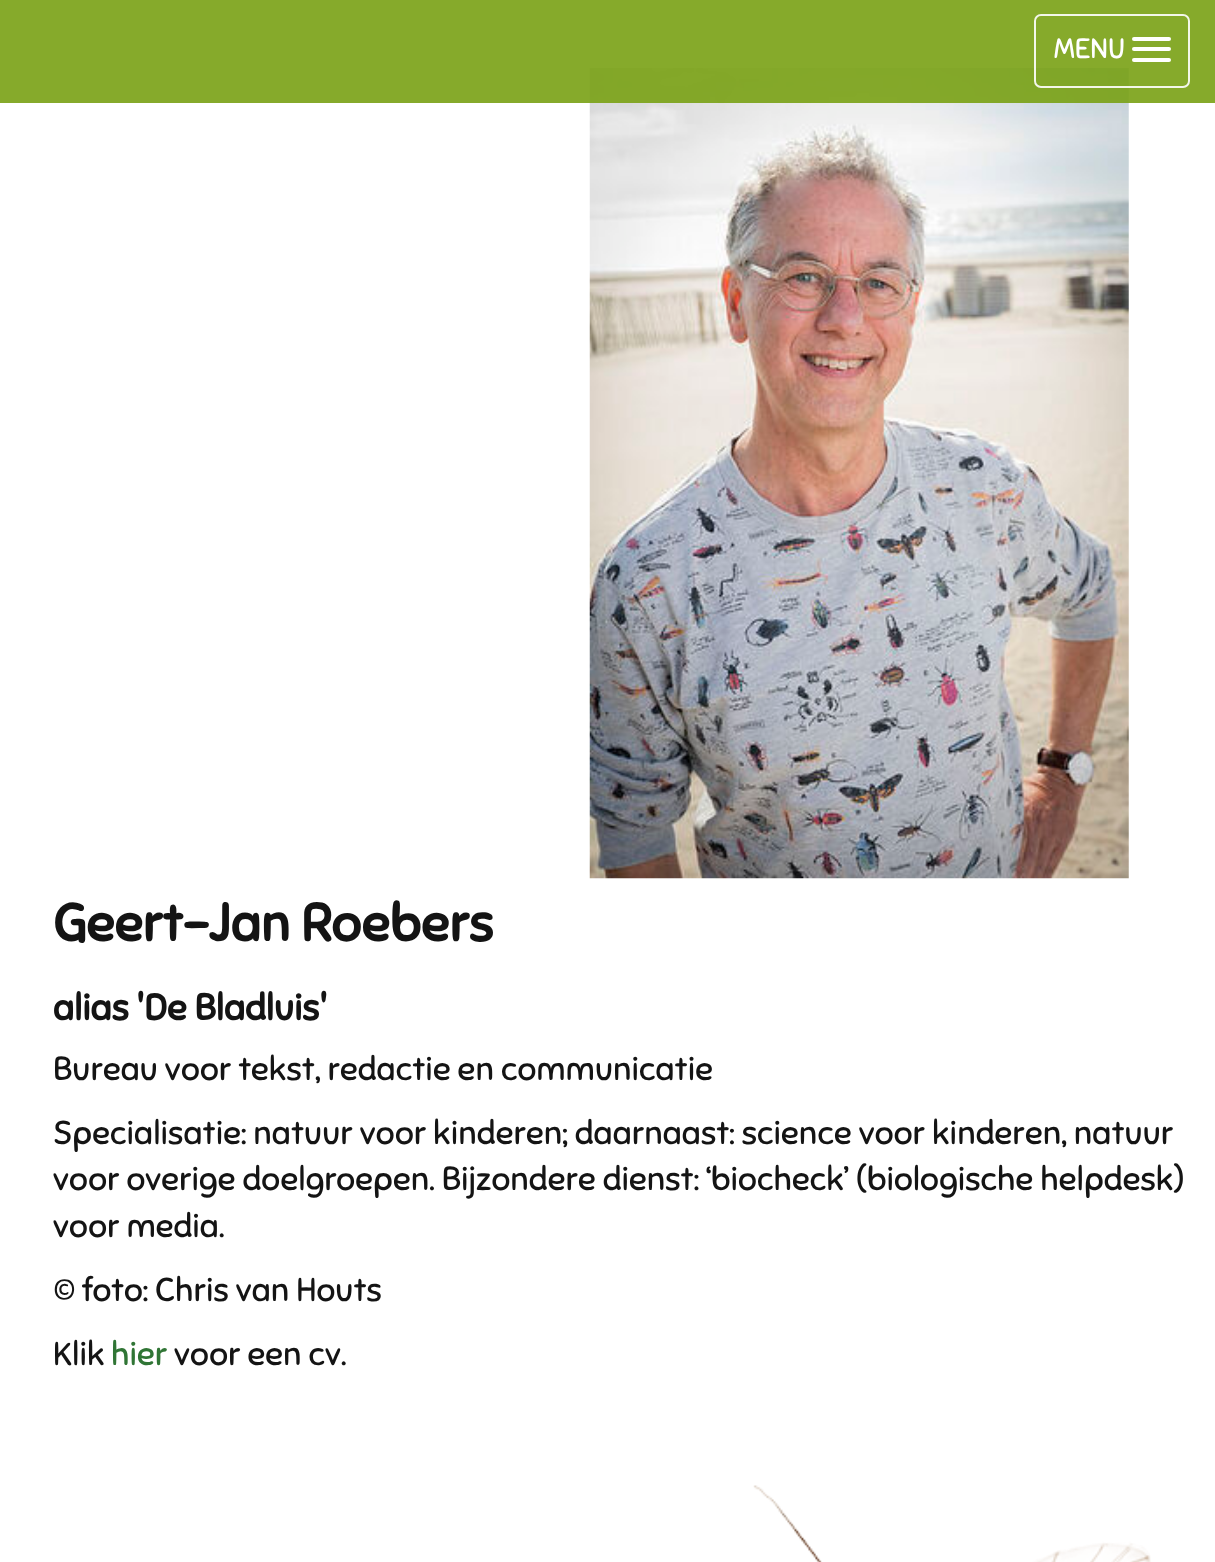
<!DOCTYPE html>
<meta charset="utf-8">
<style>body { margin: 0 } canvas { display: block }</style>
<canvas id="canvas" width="1215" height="1562"></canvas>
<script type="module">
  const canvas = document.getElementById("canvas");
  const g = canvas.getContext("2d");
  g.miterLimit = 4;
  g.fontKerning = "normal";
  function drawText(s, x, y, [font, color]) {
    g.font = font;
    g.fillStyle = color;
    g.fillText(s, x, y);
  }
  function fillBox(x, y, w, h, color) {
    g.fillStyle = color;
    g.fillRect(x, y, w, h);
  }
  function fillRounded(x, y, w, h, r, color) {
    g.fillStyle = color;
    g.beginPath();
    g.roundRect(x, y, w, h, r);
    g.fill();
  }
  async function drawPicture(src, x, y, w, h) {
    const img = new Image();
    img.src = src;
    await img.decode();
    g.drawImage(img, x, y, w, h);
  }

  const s1 = ["28px Sniglet", "#FFFFFF"];
  const s2 = ["bold 52.5px Sniglet", "#141414"];
  const s3 = ["bold 36.75px Sniglet", "#141414"];
  const s4 = ["33.25px Sniglet", "#141414"];
  const s5 = ["33.25px Sniglet", "#307535"];

  fillBox(0, 0, 1215, 1562, "#FFFFFF");
  await drawPicture("pic1.png", 589, 68, 540, 811);
  fillBox(0, 0, 1215, 103, "rgba(121, 161, 20, 0.9)");
  g.beginPath();
  g.roundRect(1035, 15, 154, 72, 6);
  g.strokeStyle = "rgba(255, 255, 255, 0.9)";
  g.lineWidth = 2;
  g.stroke();
  drawText("MENU", 1054, 58, s1);
  fillRounded(1132, 37, 39, 4, 2, "#FFFFFF");
  fillRounded(1132, 47, 39, 4, 2, "#FFFFFF");
  fillRounded(1132, 58, 39, 4, 2, "#FFFFFF");
  drawText("Geert-Jan Roebers", 53, 941, s2);
  drawText("alias 'De Bladluis'", 53, 1020, s3);
  drawText("Bureau voor tekst, redactie en communicatie", 53, 1080, s4);
  drawText("Specialisatie: natuur voor kinderen; daarnaast: science voor kinderen, natuur", 53, 1144, s4);
  drawText("voor overige doelgroepen. Bijzondere dienst: ‘biocheck’ (biologische helpdesk)", 53, 1190, s4);
  drawText("voor media.", 53, 1237, s4);
  drawText("© foto: Chris van Houts", 53, 1301, s4);
  drawText("Klik", 53, 1365, s4);
  drawText("hier", 111, 1365, s5);
  drawText("voor een cv.", 174, 1365, s4);
  await drawPicture("pic2.png", 753, 1485, 398, 77);
</script>
